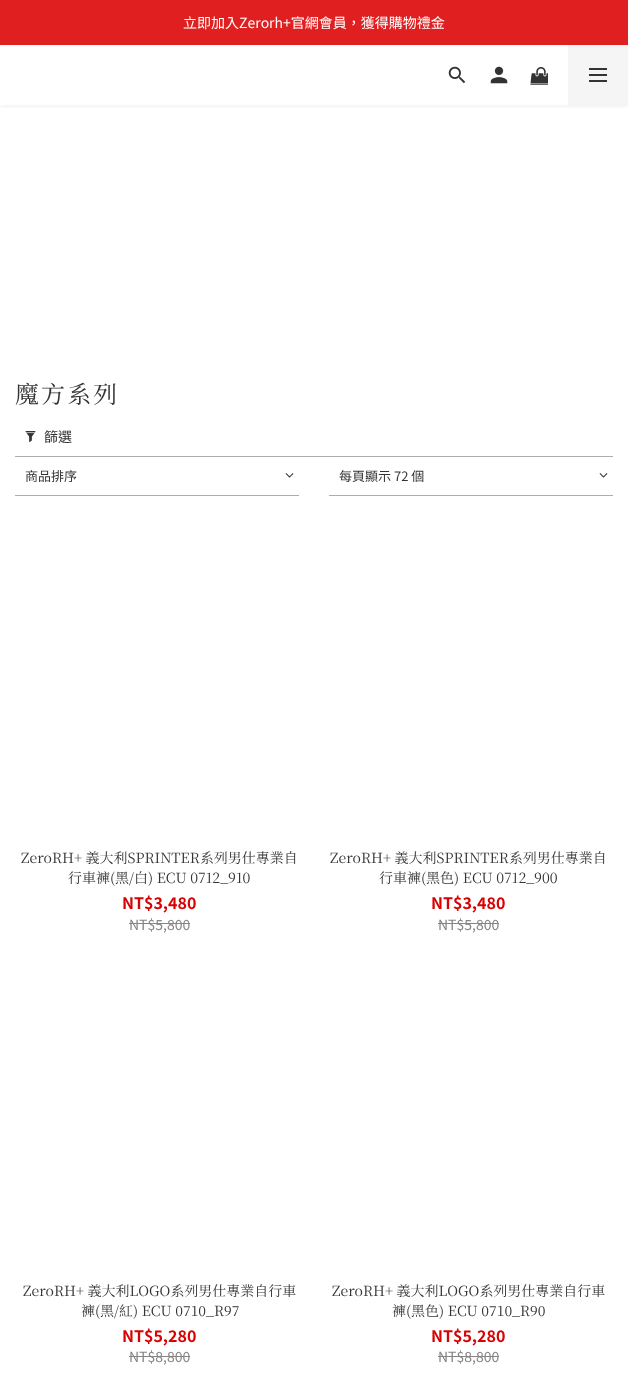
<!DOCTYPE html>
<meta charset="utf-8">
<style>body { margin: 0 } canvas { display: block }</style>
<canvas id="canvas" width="628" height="1399"></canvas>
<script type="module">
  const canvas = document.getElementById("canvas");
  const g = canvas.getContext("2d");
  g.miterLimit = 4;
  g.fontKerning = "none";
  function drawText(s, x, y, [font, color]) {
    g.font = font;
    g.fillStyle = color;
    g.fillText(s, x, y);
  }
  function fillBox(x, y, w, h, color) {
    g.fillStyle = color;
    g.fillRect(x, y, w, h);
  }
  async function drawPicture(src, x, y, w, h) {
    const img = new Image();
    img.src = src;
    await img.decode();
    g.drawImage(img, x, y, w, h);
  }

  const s1 = ["14px Noto Sans TC", "#FFFFFF"];
  const s2 = ["24px Noto Serif TC", "#333333"];
  const s3 = ["14px Noto Sans TC", "#333333"];
  const s4 = ["13px Noto Sans TC", "#333333"];
  const s5 = ["14px Noto Serif TC", "#333333"];
  const s6 = ["bold 16px Noto Sans TC", "#D90202"];
  const s7 = ["14px Noto Sans TC", "#858585"];

  fillBox(0, 0, 628, 1399, "#FFFFFF");
  fillBox(0, 0, 628, 45, "#E02020");
  drawText("立即加入Zerorh+官網會員，獲得購物禮金", 183, 28, s1);
  g.save();
  g.beginPath();
  g.rect(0, 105, 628, 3);
  g.clip();
  g.fillStyle = "rgba(0, 0, 0, 0.06)";
  g.filter = "blur(3px)";
  g.beginPath();
  g.rect(0, 47, 628, 60);
  g.fill();
  g.filter = "none";
  g.restore();
  await drawPicture("pic1.png", 448, 66, 18, 18);
  await drawPicture("pic2.png", 490, 66, 18, 18);
  await drawPicture("pic3.png", 530, 67, 18, 18);
  fillBox(568, 45, 60, 60, "#F5F5F5");
  fillBox(589, 74, 18, 2, "#333333");
  fillBox(589, 68, 18, 2, "#333333");
  fillBox(589, 80, 18, 2, "#333333");
  g.letterSpacing = "2px";
  drawText("魔方系列", 15, 403, s2);
  fillBox(15, 456, 598, 1, "#ADADAD");
  await drawPicture("pic4.png", 25, 431, 11, 11);
  g.letterSpacing = "0px";
  drawText("篩選", 44, 442, s3);
  drawText("商品排序", 25, 481, s4);
  fillBox(15, 495, 284, 1, "#ADADAD");
  await drawPicture("pic5.png", 285, 473, 9, 5);
  drawText("每頁顯示 72 個", 339, 481, s4);
  fillBox(329, 495, 284, 1, "#ADADAD");
  await drawPicture("pic5.png", 599, 473, 9, 5);
  drawText("ZeroRH+ 義大利SPRINTER系列男仕專業自", 21, 863, s5);
  drawText("行車褲(黑/白) ECU 0712_910", 68, 883, s5);
  drawText("NT$3,480", 122, 909, s6);
  drawText("NT$5,800", 129, 930, s7);
  fillBox(129, 923, 61, 1, "#858585");
  drawText("ZeroRH+ 義大利SPRINTER系列男仕專業自", 330, 863, s5);
  drawText("行車褲(黑色) ECU 0712_900", 379, 883, s5);
  drawText("NT$3,480", 431, 909, s6);
  drawText("NT$5,800", 438, 930, s7);
  fillBox(438, 923, 61, 1, "#858585");
  drawText("ZeroRH+ 義大利LOGO系列男仕專業自行車", 23, 1296, s5);
  drawText("褲(黑/紅) ECU 0710_R97", 81, 1316, s5);
  drawText("NT$5,280", 122, 1342, s6);
  drawText("NT$8,800", 129, 1362, s7);
  fillBox(129, 1356, 61, 1, "#858585");
  drawText("ZeroRH+ 義大利LOGO系列男仕專業自行車", 332, 1296, s5);
  drawText("褲(黑色) ECU 0710_R90", 392, 1316, s5);
  drawText("NT$5,280", 431, 1342, s6);
  drawText("NT$8,800", 438, 1362, s7);
  fillBox(438, 1356, 61, 1, "#858585");
</script>
